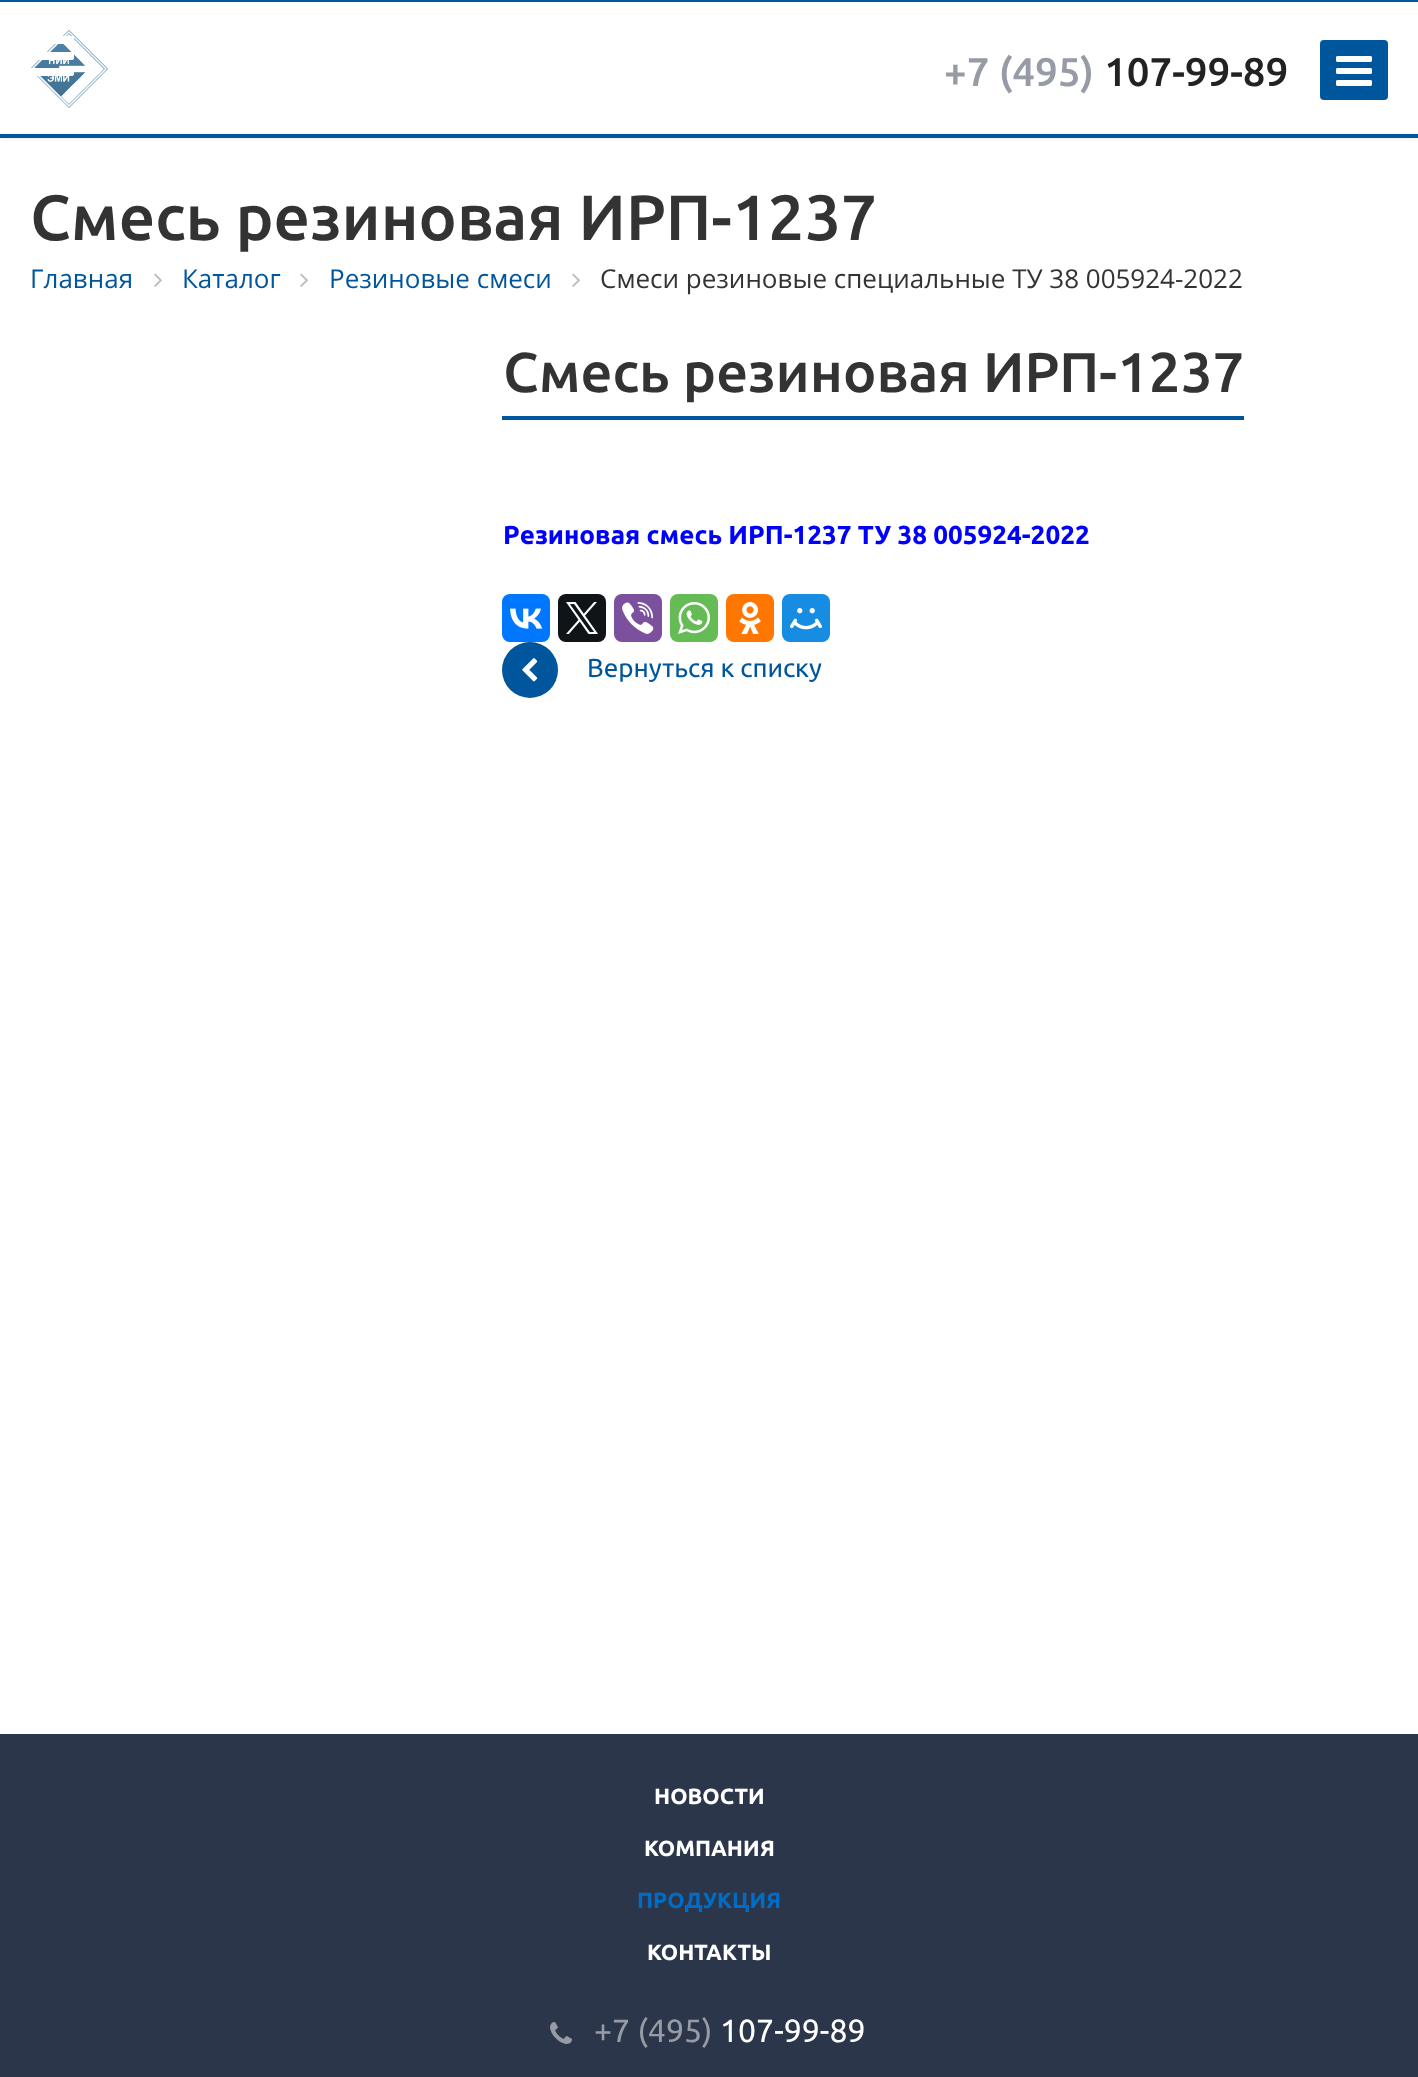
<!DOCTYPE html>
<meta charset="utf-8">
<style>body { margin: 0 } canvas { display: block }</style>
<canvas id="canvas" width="1418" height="2077"></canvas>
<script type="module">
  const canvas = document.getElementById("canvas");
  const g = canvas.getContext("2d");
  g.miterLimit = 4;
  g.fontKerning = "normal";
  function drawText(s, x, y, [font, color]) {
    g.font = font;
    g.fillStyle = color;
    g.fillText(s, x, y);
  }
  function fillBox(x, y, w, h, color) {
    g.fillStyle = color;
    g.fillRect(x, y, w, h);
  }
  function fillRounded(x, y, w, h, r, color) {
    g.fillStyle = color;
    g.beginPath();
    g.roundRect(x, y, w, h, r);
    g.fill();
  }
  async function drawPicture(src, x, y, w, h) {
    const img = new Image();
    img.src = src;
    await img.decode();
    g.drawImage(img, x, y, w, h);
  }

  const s1 = ["500 40px Ubuntu", "#969BA5"];
  const s2 = ["500 40px Ubuntu", "#222222"];
  const s3 = ["500 64px Ubuntu", "#333333"];
  const s4 = ["26px Open Sans", "#00569C"];
  const s5 = ["26px Open Sans", "#333333"];
  const s6 = ["500 56px Ubuntu", "#333333"];
  const s7 = ["bold 26px Ubuntu", "#0000FF"];
  const s8 = ["26px Ubuntu", "#00569C"];
  const s9 = ["bold 22px Ubuntu", "#FFFFFF"];
  const s10 = ["bold 22px Ubuntu", "#006CC5"];
  const s11 = ["32px Ubuntu", "#969BA5"];
  const s12 = ["32px Ubuntu", "#FFFFFF"];

  fillBox(0, 0, 1418, 2077, "#FFFFFF");
  g.save();
  g.beginPath();
  g.rect(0, 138, 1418, 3);
  g.clip();
  g.fillStyle = "rgba(0, 0, 0, 0.14)";
  g.filter = "blur(5px)";
  g.beginPath();
  g.rect(0, 0, 1418, 136);
  g.fill();
  g.filter = "none";
  g.restore();
  await drawPicture("pic2.png", 31, 30, 77, 78);
  await drawPicture("pic1.png", 30, 36, 44, 40);
  fillBox(0, 0, 1418, 2, "#00569C");
  drawText("+7 (495)", 944, 86, s1);
  drawText("107-99-89", 1104, 86, s2);
  fillRounded(1320, 40, 68, 60, 4, "#00569C");
  await drawPicture("pic3.png", 1336, 56, 36, 30);
  fillBox(0, 134, 1418, 4, "#00569C");
  drawText("Смесь резиновая ИРП-1237", 30, 240, s3);
  drawText("Главная", 30, 288, s4);
  await drawPicture("pic4.png", 154, 273, 8, 14);
  drawText("Каталог", 182, 288, s4);
  await drawPicture("pic4.png", 300, 273, 8, 14);
  drawText("Резиновые смеси", 329, 288, s4);
  await drawPicture("pic4.png", 572, 273, 8, 14);
  drawText("Смеси резиновые специальные ТУ 38 005924-2022", 600, 288, s5);
  fillBox(502, 416, 742, 4, "#00569C");
  drawText("Смесь резиновая ИРП-1237", 503, 392, s6);
  drawText("Резиновая смесь ИРП-1237 ТУ 38 005924-2022", 503, 544, s7);
  fillRounded(502, 594, 48, 48, 8, "#0077FF");
  await drawPicture("pic5.png", 510, 608, 33, 21);
  fillRounded(558, 594, 48, 48, 8, "#0F1419");
  await drawPicture("pic6.png", 566, 602, 32, 32);
  fillRounded(614, 594, 48, 48, 8, "#7B519D");
  await drawPicture("pic7.png", 622, 602, 32, 32);
  fillRounded(670, 594, 48, 48, 8, "#65BC54");
  await drawPicture("pic8.png", 678, 602, 32, 32);
  fillRounded(726, 594, 48, 48, 8, "#FF7700");
  await drawPicture("pic9.png", 739, 602, 22, 32);
  fillRounded(782, 594, 48, 48, 8, "#168DE2");
  await drawPicture("pic10.png", 790, 608, 32, 22);
  g.fillStyle = "#00569C";
  g.beginPath();
  g.arc(530, 670, 28, 0, Math.PI * 2);
  g.fill();
  await drawPicture("pic11.png", 522, 658, 16, 24);
  drawText("Вернуться к списку", 587, 677, s8);
  fillBox(0, 1734, 1418, 343, "#2C364A");
  drawText("НОВОСТИ", 654, 1804, s9);
  drawText("КОМПАНИЯ", 644, 1856, s9);
  drawText("ПРОДУКЦИЯ", 637, 1908, s10);
  drawText("КОНТАКТЫ", 647, 1960, s9);
  await drawPicture("pic12.png", 550, 2022, 22, 22);
  drawText("+7 (495)", 594, 2042, s11);
  drawText("107-99-89", 720, 2042, s12);
</script>
